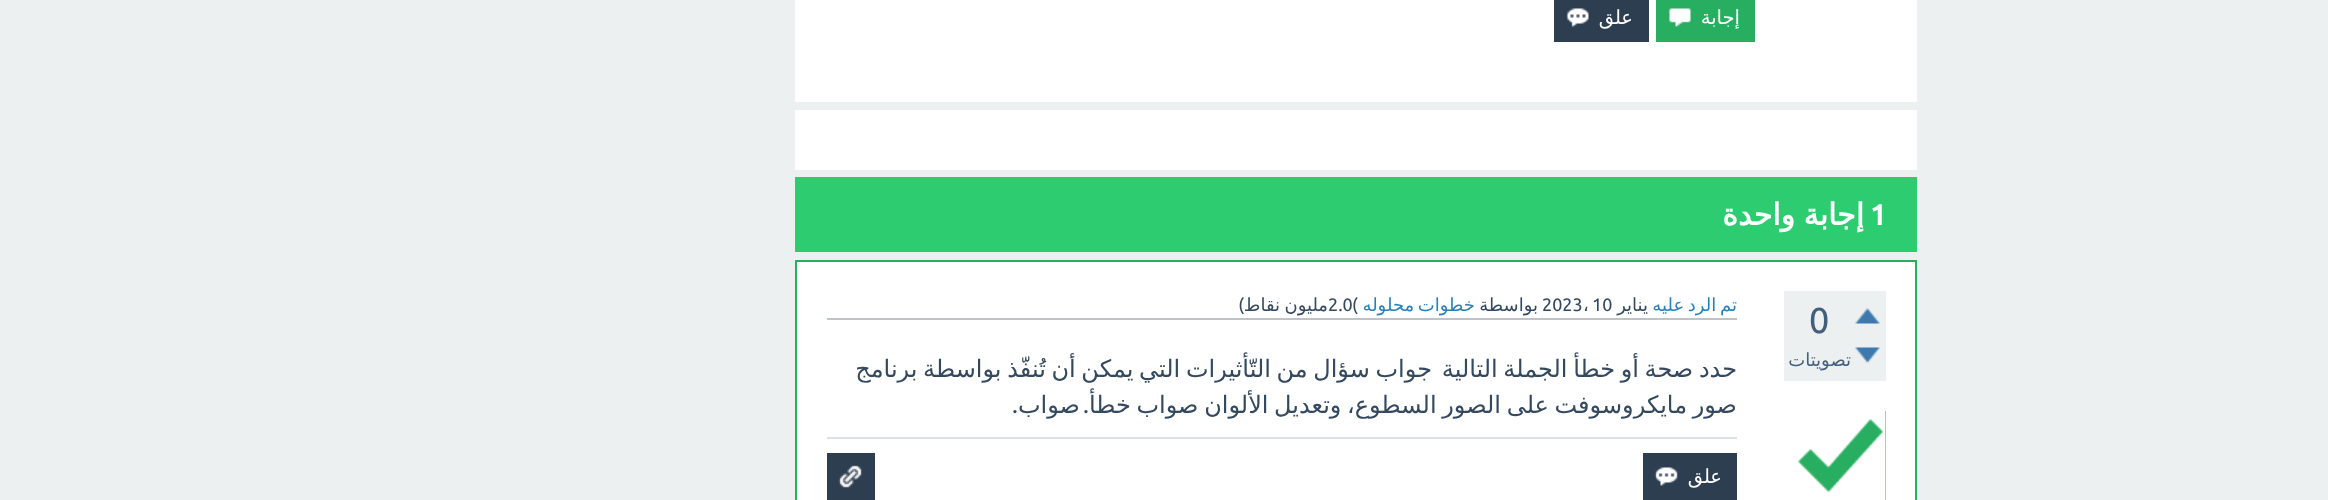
<!DOCTYPE html>
<meta charset="utf-8">
<style>body { margin: 0 } canvas { display: block }</style>
<canvas id="canvas" width="2328" height="500"></canvas>
<script type="module">
  const canvas = document.getElementById("canvas");
  const g = canvas.getContext("2d");
  g.miterLimit = 4;
  g.fontKerning = "normal";
  function drawText(s, x, y, [font, color]) {
    g.font = font;
    g.fillStyle = color;
    g.fillText(s, x, y);
  }
  function fillBox(x, y, w, h, color) {
    g.fillStyle = color;
    g.fillRect(x, y, w, h);
  }
  async function drawPicture(src, x, y, w, h) {
    const img = new Image();
    img.src = src;
    await img.decode();
    g.drawImage(img, x, y, w, h);
  }

  const s1 = ["19.5px DejaVu Sans", "#FFFFFF"];
  const s2 = ["bold 30px Ubuntu", "#FFFFFF"];
  const s3 = ["bold 30px DejaVu Sans", "#FFFFFF"];
  const s4 = ["36px Ubuntu", "#445F7A"];
  const s5 = ["18px DejaVu Sans", "#445F7A"];
  const s6 = ["18px DejaVu Sans", "#2980B9"];
  const s7 = ["18px DejaVu Sans", "#34495E"];
  const s8 = ["18px Ubuntu", "#34495E"];
  const s9 = ["24px DejaVu Sans", "#34495E"];
  const s10 = ["24px Ubuntu", "#34495E"];

  fillBox(0, 0, 2328, 500, "#ECF0F1");
  fillBox(795, 0, 1122, 102, "#FFFFFF");
  fillBox(1656, 0, 99, 42, "#27AE60");
  await drawPicture("pic1.png", 1668, 8, 23, 19);
  g.direction = "rtl";
  drawText("إجابة", 1740, 24, s1);
  fillBox(1554, 0, 95, 42, "#2C3E50");
  await drawPicture("pic2.png", 1566, 8, 23, 19);
  drawText("علق", 1633, 24, s1);
  fillBox(795, 110, 1122, 60, "#FFFFFF");
  fillBox(795, 177, 1122, 75, "#2ECC71");
  g.direction = "ltr";
  drawText("1", 1870, 225, s2);
  g.wordSpacing = "-1px";
  g.direction = "rtl";
  drawText("إجابة واحدة", 1864, 225, s3);
  g.beginPath();
  g.rect(796, 261, 1120, 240);
  g.fill();
  g.strokeStyle = "#27AE60";
  g.lineWidth = 2;
  g.stroke();
  fillBox(1784, 291, 102, 90, "#ECF0F1");
  await drawPicture("pic3.png", 1855, 308, 25, 16);
  await drawPicture("pic4.png", 1855, 347, 25, 16);
  g.wordSpacing = "0px";
  g.direction = "ltr";
  drawText("0", 1809, 333, s4);
  g.direction = "rtl";
  drawText("تصويتات", 1851, 366, s5);
  fillBox(827, 318, 910, 2, "#BDC3C7");
  g.wordSpacing = "-2px";
  drawText("تم الرد عليه", 1737, 311, s6);
  g.wordSpacing = "0px";
  drawText("يناير", 1648, 311, s7);
  g.direction = "ltr";
  drawText("10", 1592, 311, s8);
  drawText("،", 1583, 311, s7);
  drawText("2023", 1542, 311, s8);
  g.direction = "rtl";
  drawText("بواسطة", 1538, 311, s7);
  g.wordSpacing = "-2px";
  drawText("خطوات محلوله", 1475, 311, s6);
  g.wordSpacing = "0px";
  g.direction = "ltr";
  drawText("(", 1352, 311, s8);
  drawText("2.0", 1328, 311, s8);
  g.direction = "rtl";
  drawText("مليون", 1328, 311, s7);
  drawText("نقاط", 1280, 311, s7);
  drawText(")", 1244, 311, s8);
  g.wordSpacing = "-2px";
  drawText("حدد صحة أو خطأ الجملة التالية", 1737, 377, s9);
  drawText("جواب سؤال من التّأثيرات التي يمكن أن تُنفّذ بواسطة برنامج", 1432, 377, s9);
  drawText("صور مايكروسوفت على الصور السطوع، وتعديل الألوان صواب خطأ", 1737, 413, s9);
  g.wordSpacing = "0px";
  drawText(".", 1089, 413, s10);
  drawText("صواب", 1080, 413, s9);
  drawText(".", 1018, 413, s10);
  fillBox(1798, 411, 88, 89, "#27AE60");
  await drawPicture("pic5.png", 1796, 411, 90, 89);
  fillBox(827, 437, 910, 2, "#DEE1E3");
  fillBox(1643, 453, 94, 47, "#2C3E50");
  await drawPicture("pic6.png", 1654, 467, 24, 19);
  drawText("علق", 1722, 483, s1);
  fillBox(827, 453, 48, 47, "#2C3E50");
  await drawPicture("pic7.png", 838, 465, 24, 24);
</script>
